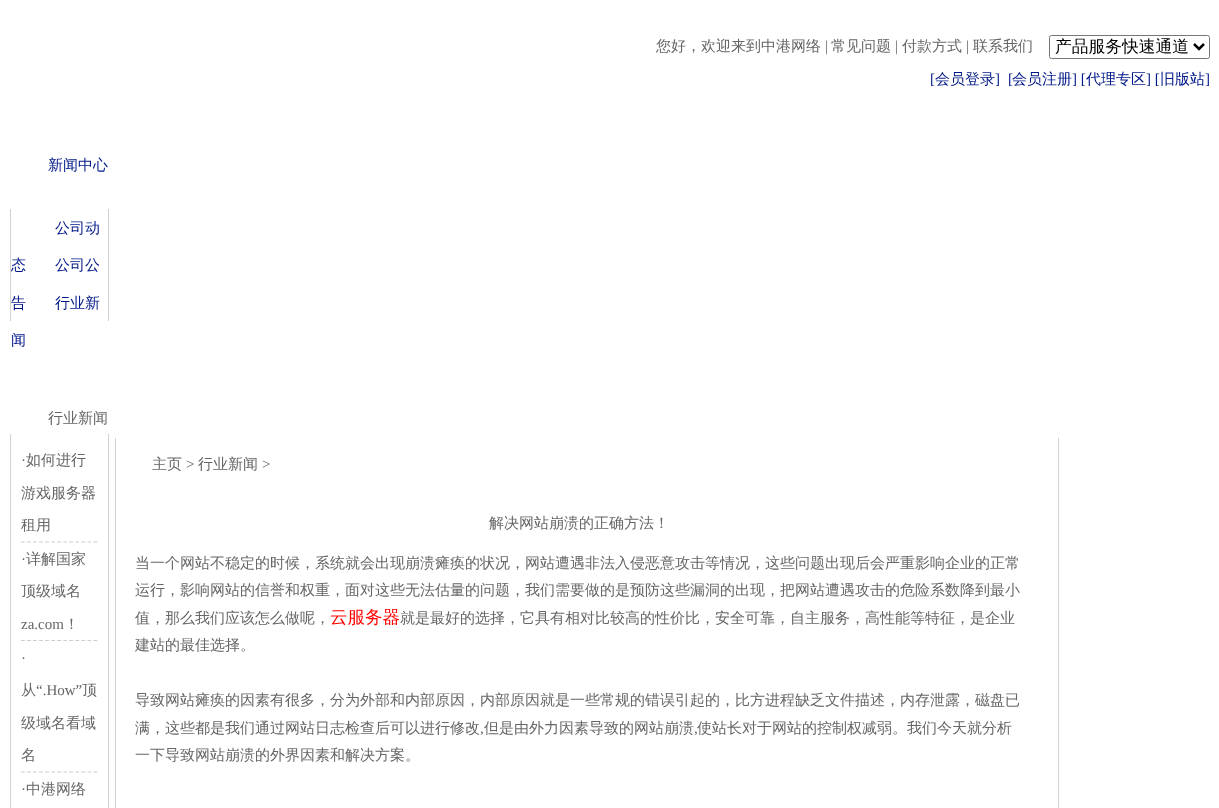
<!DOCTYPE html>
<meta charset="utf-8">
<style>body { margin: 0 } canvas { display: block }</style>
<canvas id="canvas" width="1219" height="808"></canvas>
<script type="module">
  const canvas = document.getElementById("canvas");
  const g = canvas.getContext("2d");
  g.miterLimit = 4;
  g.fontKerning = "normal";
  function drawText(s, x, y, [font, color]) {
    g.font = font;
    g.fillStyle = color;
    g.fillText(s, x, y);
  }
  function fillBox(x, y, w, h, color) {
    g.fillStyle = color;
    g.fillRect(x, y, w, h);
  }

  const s1 = ["500 15px WenQuanYi Zen Hei", "#666666"];
  const s2 = ["15px Liberation Serif", "#666666"];
  const s3 = ["500 16.75px WenQuanYi Zen Hei", "#000000"];
  const s4 = ["15px Liberation Serif", "#001887"];
  const s5 = ["500 15px WenQuanYi Zen Hei", "#001887"];
  const s6 = ["500 17.5px WenQuanYi Zen Hei", "#FF0000"];

  fillBox(0, 0, 1219, 808, "#FFFFFF");
  drawText("您好，欢迎来到中港网络", 656, 51, s1);
  drawText("|", 825, 51, s2);
  drawText("常见问题", 831, 51, s1);
  drawText("|", 895, 51, s2);
  drawText("付款方式", 902, 51, s1);
  drawText("|", 966, 51, s2);
  drawText("联系我们", 973, 51, s1);
  g.beginPath();
  g.roundRect(1049.5, 35.5, 160, 23, 2);
  g.strokeStyle = "#767676";
  g.stroke();
  g.beginPath();
  g.moveTo(1194, 44);
  g.lineTo(1199, 49);
  g.lineTo(1204, 44);
  g.strokeStyle = "#000000";
  g.lineWidth = 2.5;
  g.stroke();
  drawText("产品服务快速通道", 1055, 52, s3);
  drawText("[", 930, 84, s4);
  drawText("会员登录", 935, 84, s5);
  drawText("]", 995, 84, s4);
  drawText("[", 1008, 84, s4);
  drawText("会员注册", 1012, 84, s5);
  drawText("] [", 1072, 84, s4);
  drawText("代理专区", 1086, 84, s5);
  drawText("] [", 1146, 84, s4);
  drawText("旧版站", 1160, 84, s5);
  drawText("]", 1205, 84, s4);
  drawText("新闻中心", 48, 170, s5);
  fillBox(108, 209, 1, 112, "#D1D1D1");
  fillBox(10, 209, 1, 112, "#D1D1D1");
  drawText("公司动", 55, 233, s5);
  drawText("态", 11, 270, s5);
  drawText("公司公", 55, 270, s5);
  drawText("告", 11, 308, s5);
  drawText("行业新", 55, 308, s5);
  drawText("闻", 11, 345, s5);
  drawText("行业新闻", 48, 423, s1);
  fillBox(108, 434, 1, 374, "#D1D1D1");
  fillBox(10, 434, 1, 374, "#D1D1D1");
  g.beginPath();
  g.moveTo(21, 542);
  g.lineTo(97.5, 542);
  g.strokeStyle = "#CCCCCC";
  g.lineWidth = 1.2;
  g.setLineDash([3.75, 2.29]);
  g.stroke();
  drawText("·", 21, 465, s2);
  drawText("如何进行", 26, 465, s1);
  drawText("游戏服务器", 21, 498, s1);
  drawText("租用", 21, 530, s1);
  g.beginPath();
  g.moveTo(21, 640.5);
  g.lineTo(97.5, 640.5);
  g.stroke();
  drawText("·", 21, 564, s2);
  drawText("详解国家", 26, 564, s1);
  drawText("顶级域名", 21, 596, s1);
  drawText("za.com", 21, 629, s2);
  drawText("！", 64, 629, s1);
  g.beginPath();
  g.moveTo(21, 772);
  g.lineTo(97.5, 772);
  g.stroke();
  drawText("·", 21, 663, s2);
  drawText("从", 21, 695, s1);
  drawText("“.How”", 36, 695, s2);
  drawText("顶", 82, 695, s1);
  drawText("级域名看域", 21, 728, s1);
  drawText("名", 21, 760, s1);
  drawText("·", 21, 794, s2);
  drawText("中港网络", 26, 794, s1);
  fillBox(1058, 438, 1, 370, "#D1D1D1");
  fillBox(115, 438, 1, 370, "#D1D1D1");
  drawText("主页", 152, 469, s1);
  drawText(">", 186, 469, s2);
  drawText("行业新闻", 198, 469, s1);
  drawText(">", 262, 469, s2);
  drawText("解决网站崩溃的正确方法！", 489, 528, s1);
  drawText("当一个网站不稳定的时候，系统就会出现崩溃瘫痪的状况，网站遭遇非法入侵恶意攻击等情况，这些问题出现后会严重影响企业的正常", 135, 568, s1);
  drawText("运行，影响网站的信誉和权重，面对这些无法估量的问题，我们需要做的是预防这些漏洞的出现，把网站遭遇攻击的危险系数降到最小", 135, 595, s1);
  drawText("值，那么我们应该怎么做呢，", 135, 623, s1);
  drawText("云服务器", 330, 623, s6);
  drawText("就是最好的选择，它具有相对比较高的性价比，安全可靠，自主服务，高性能等特征，是企业", 400, 623, s1);
  drawText("建站的最佳选择。", 135, 650, s1);
  drawText("导致网站瘫痪的因素有很多，分为外部和内部原因，内部原因就是一些常规的错误引起的，比方进程缺乏文件描述，内存泄露，磁盘已", 135, 705, s1);
  drawText("满，这些都是我们通过网站日志检查后可以进行修改", 135, 733, s1);
  drawText(",", 480, 733, s2);
  drawText("但是由外力因素导致的网站崩溃", 484, 733, s1);
  drawText(",", 694, 733, s2);
  drawText("使站长对于网站的控制权减弱。我们今天就分析", 697, 733, s1);
  drawText("一下导致网站崩溃的外界因素和解决方案。", 135, 760, s1);
</script>
